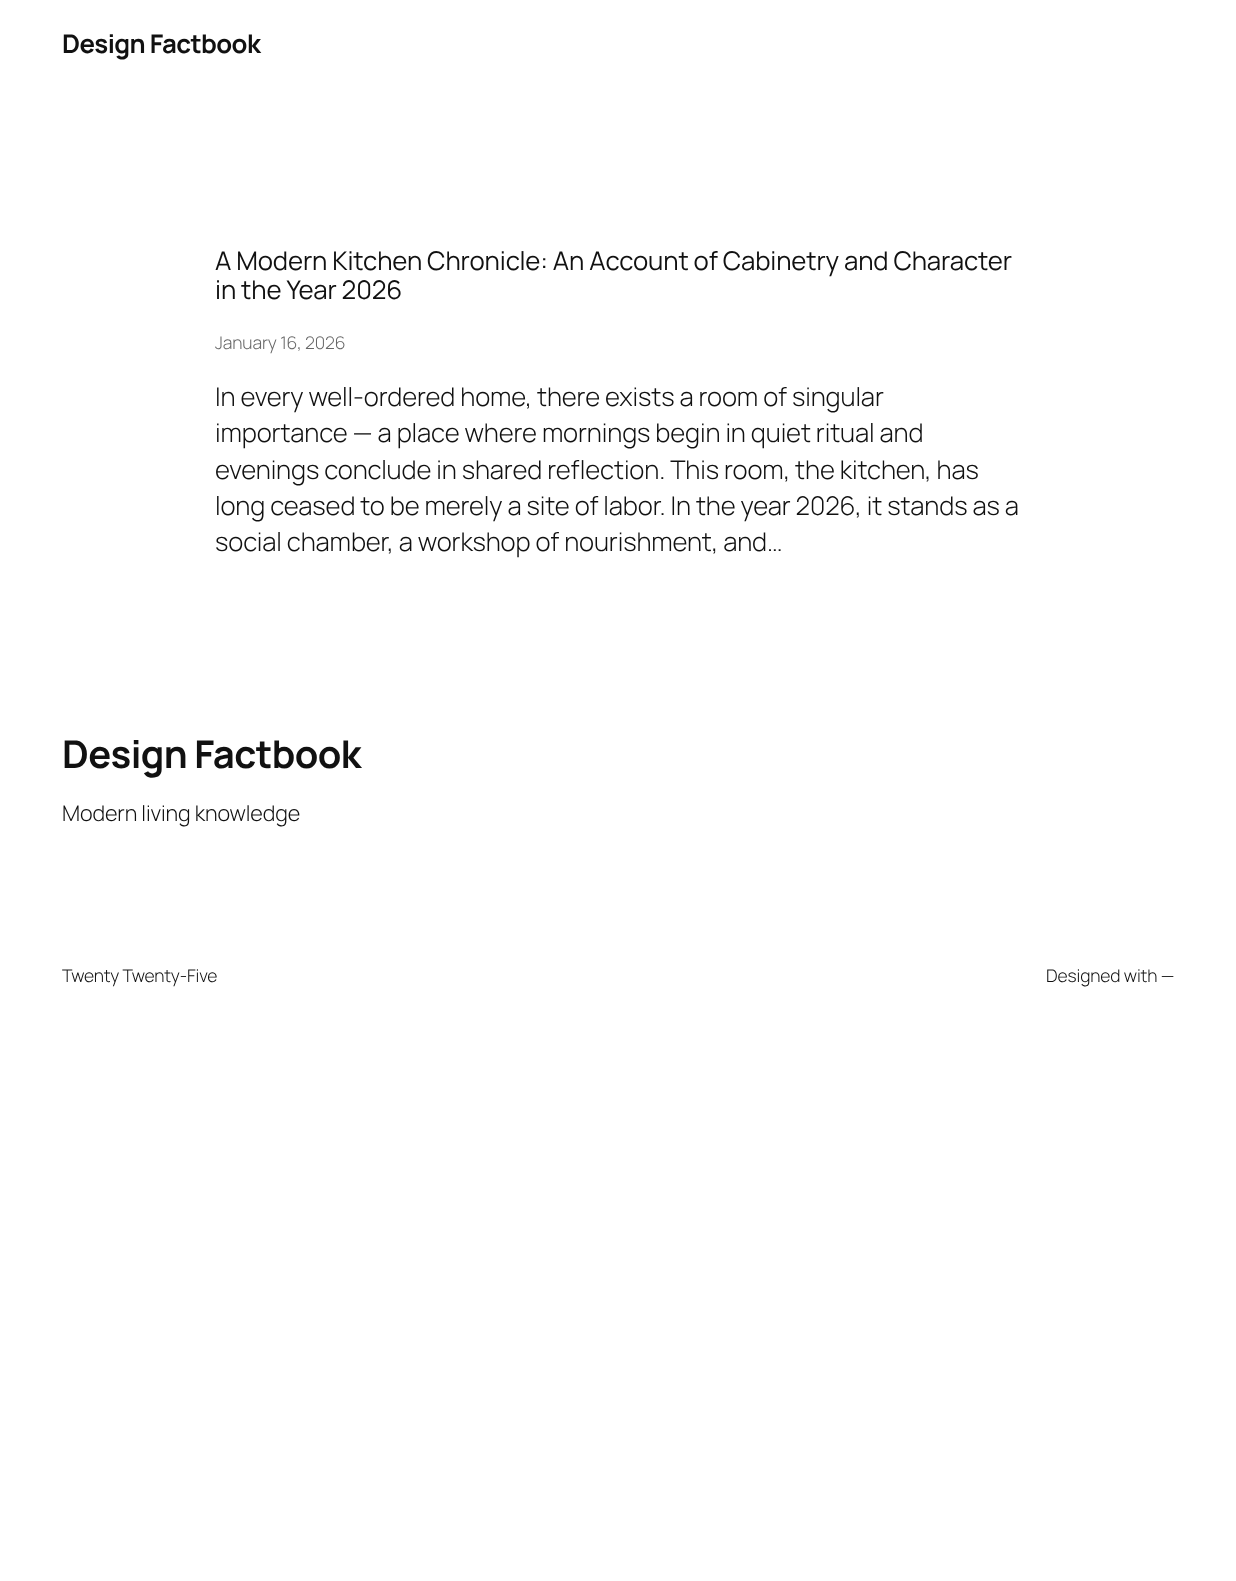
async function draw(canvas) {
  canvas.width = 1236
  canvas.height = 1581
  const ctx = canvas.getContext('2d')
  ctx.miterLimit = 4
  ctx.fontKerning = 'normal'

  ctx.fillStyle = '#fff'
  ctx.fillRect(0, 0, 1236, 1581)
  ctx.letterSpacing = '-0.6px'
  ctx.font = 'bold 25.75px Manrope'
  ctx.fillStyle = '#111'
  ctx.fillText('Design Factbook', 62, 53)
  ctx.letterSpacing = '-0.12px'
  ctx.font = '25.75px Manrope'
  ctx.fillText('A Modern Kitchen Chronicle: An Account of Cabinetry and Character', 215, 270)
  ctx.fillText('in the Year 2026', 215, 299)
  ctx.font = '300 17.5px Manrope'
  ctx.fillStyle = '#686868'
  ctx.fillText('January 16, 2026', 215, 349)
  ctx.font = '300 25.75px Manrope'
  ctx.fillStyle = '#111'
  ctx.fillText('In every well-ordered home, there exists a room of singular', 215, 406)
  ctx.fillText('importance — a place where mornings begin in quiet ritual and', 215, 442)
  ctx.fillText('evenings conclude in shared reflection. This room, the kitchen, has', 215, 479)
  ctx.fillText('long ceased to be merely a site of labor. In the year 2026, it stands as a', 215, 515)
  ctx.fillText('social chamber, a workshop of nourishment, and…', 215, 551)
  ctx.letterSpacing = '-0.6px'
  ctx.font = 'bold 38.25px Manrope'
  ctx.fillText('Design Factbook', 62, 768)
  ctx.letterSpacing = '-0.12px'
  ctx.font = '300 21.6px Manrope'
  ctx.fillText('Modern living knowledge', 62, 821)
  ctx.font = '300 17.5px Manrope'
  ctx.fillText('Twenty Twenty-Five', 62, 982)
  ctx.fillText('Designed with —', 1046, 982)
}

draw(document.querySelector('canvas'))
